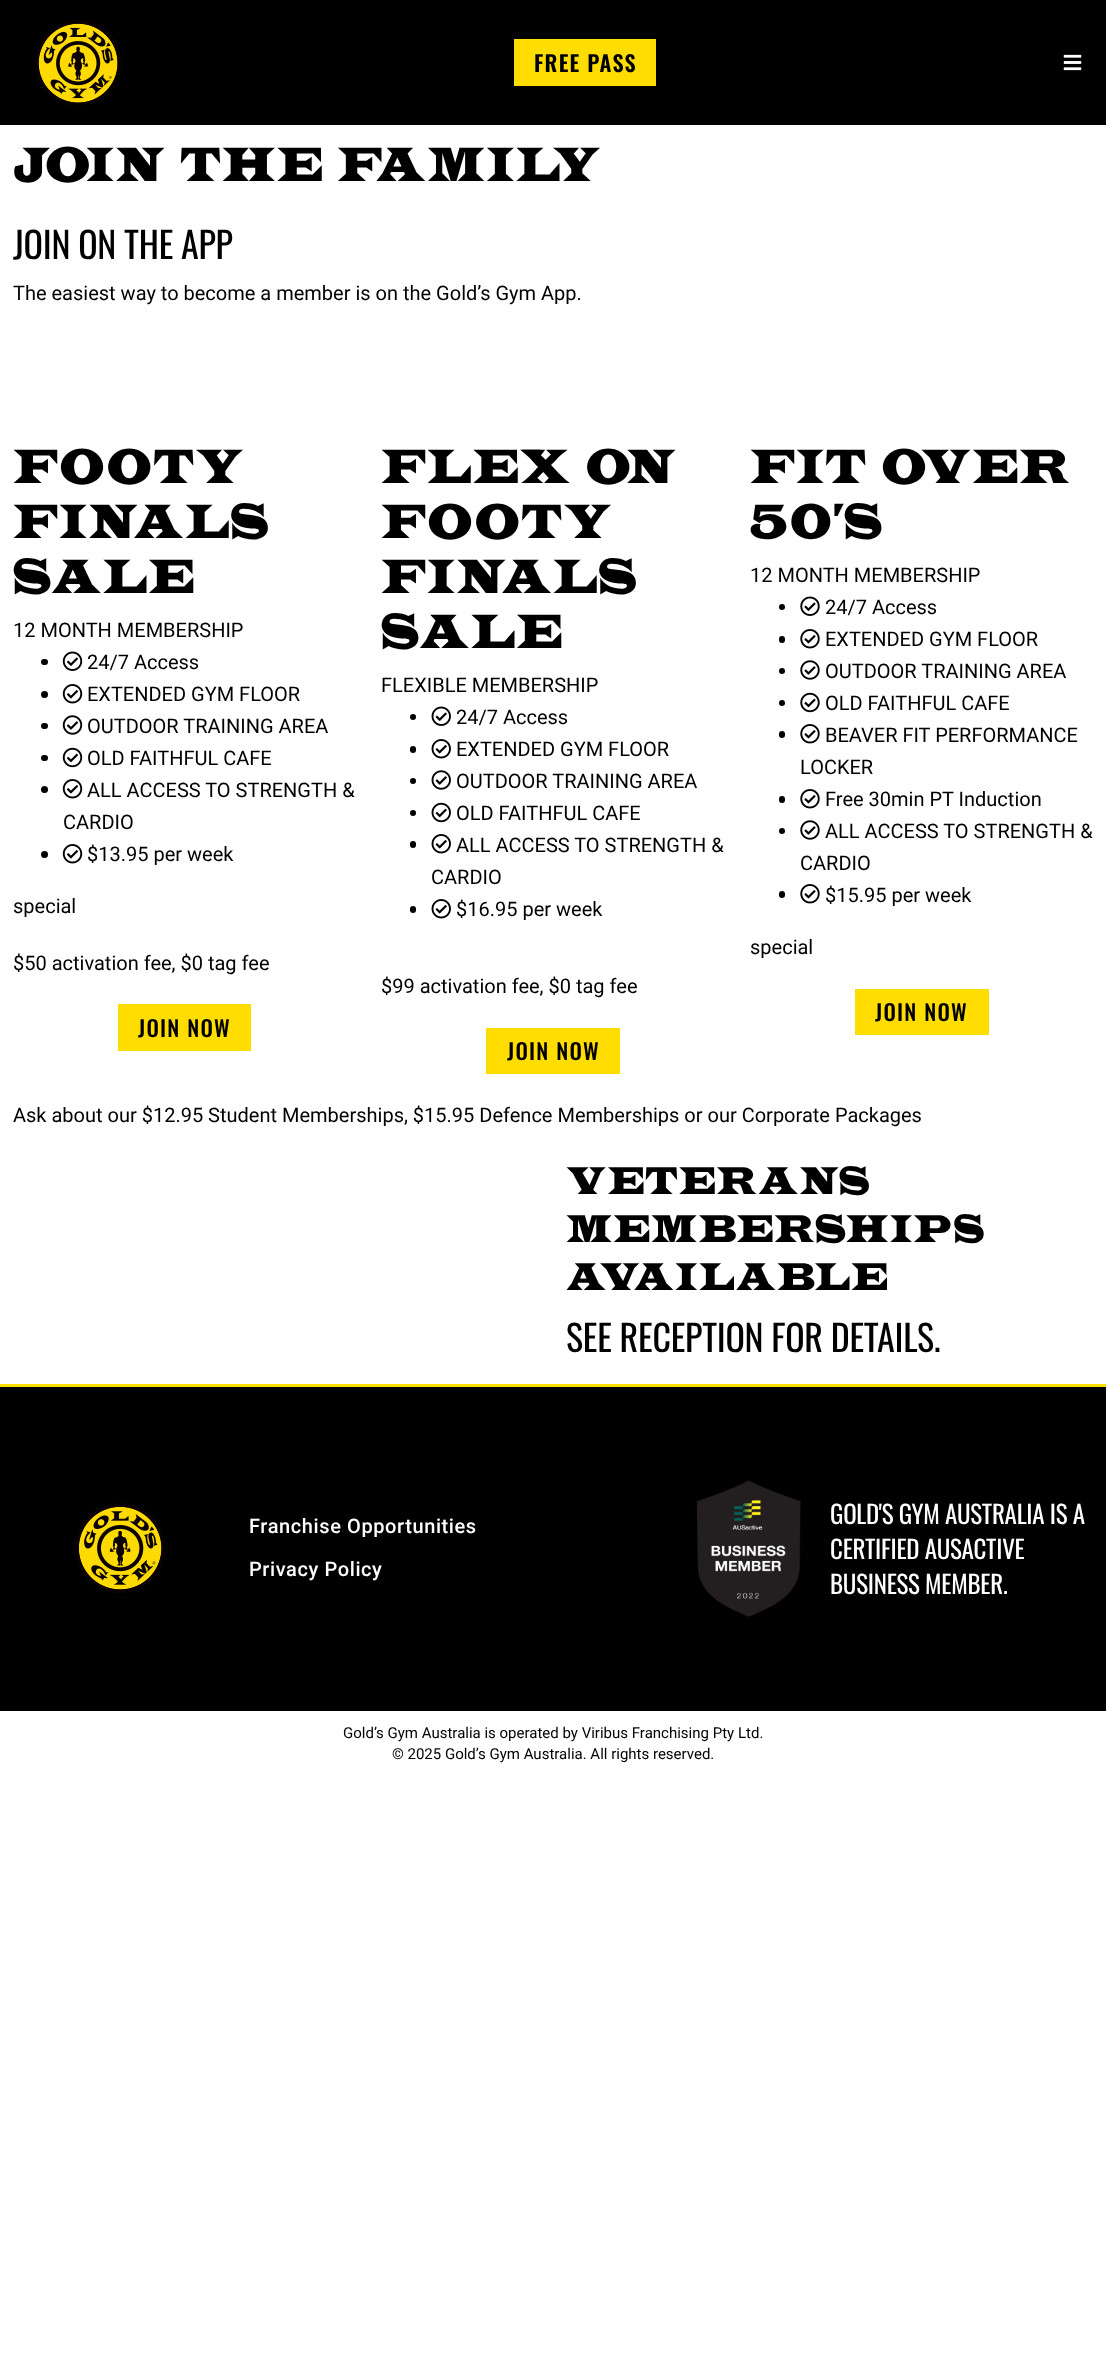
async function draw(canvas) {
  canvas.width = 1106
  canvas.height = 2359
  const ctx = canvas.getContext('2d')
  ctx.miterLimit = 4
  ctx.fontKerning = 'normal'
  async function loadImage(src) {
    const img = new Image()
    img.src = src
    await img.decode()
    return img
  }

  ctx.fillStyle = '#fff'
  ctx.fillRect(0, 0, 1106, 2359)
  ctx.fillStyle = '#000'
  ctx.fillRect(0, 0, 1106, 125)
  ctx.drawImage(await loadImage('image0.png'), 35, 20, 86, 85)
  ctx.fillStyle = '#fd0'
  ctx.fillRect(514, 39, 142, 47)
  ctx.letterSpacing = '1.25px'
  ctx.font = '600 22px Oswald'
  ctx.fillStyle = '#000'
  ctx.fillText('FREE PASS', 534, 72)
  ctx.drawImage(await loadImage('image1.png'), 1063, 54, 19, 17)
  ctx.font = '50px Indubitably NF'
  ctx.fillText('JOIN THE FAMILY', 13, 181)
  ctx.letterSpacing = '-0.25px'
  ctx.font = '36px Oswald'
  ctx.fillText('JOIN ON THE APP', 13, 259)
  ctx.letterSpacing = '0px'
  ctx.font = '20px Roboto'
  ctx.fillText('The easiest way to become a member is on the Gold’s Gym App.', 13, 300)
  ctx.letterSpacing = '1.25px'
  ctx.font = '50px Indubitably NF'
  ctx.fillText('FOOTY', 13, 483)
  ctx.fillText('FINALS', 13, 538)
  ctx.fillText('SALE', 13, 593)
  ctx.letterSpacing = '0px'
  ctx.font = '20px Roboto'
  ctx.fillText('12 MONTH MEMBERSHIP', 13, 637)
  ctx.beginPath()
  ctx.roundRect(41, 659, 7, 6, 3)
  ctx.fill()
  ctx.drawImage(await loadImage('image2.png'), 62, 651, 21, 20)
  ctx.fillText('24/7 Access', 87, 669)
  ctx.beginPath()
  ctx.arc(44.5, 694.5, 3.5, 0, 2 * Math.PI)
  ctx.fill()
  ctx.drawImage(await loadImage('image3.png'), 62, 684, 21, 20)
  ctx.fillText('EXTENDED GYM FLOOR', 87, 701)
  ctx.beginPath()
  ctx.roundRect(41, 723, 7, 6, 3)
  ctx.fill()
  ctx.drawImage(await loadImage('image4.png'), 62, 715, 21, 20)
  ctx.fillText('OUTDOOR TRAINING AREA', 87, 733)
  ctx.beginPath()
  ctx.roundRect(41, 755, 7, 6, 3)
  ctx.fill()
  ctx.drawImage(await loadImage('image5.png'), 62, 747, 21, 21)
  ctx.fillText('OLD FAITHFUL CAFE', 87, 765)
  ctx.beginPath()
  ctx.arc(44.5, 789.5, 3.5, 0, 2 * Math.PI)
  ctx.fill()
  ctx.drawImage(await loadImage('image3.png'), 62, 779, 21, 20)
  ctx.fillText('ALL ACCESS TO STRENGTH &', 87, 797)
  ctx.fillText('CARDIO', 63, 829)
  ctx.beginPath()
  ctx.arc(44.5, 854.5, 3.5, 0, 2 * Math.PI)
  ctx.fill()
  ctx.drawImage(await loadImage('image3.png'), 62, 844, 21, 20)
  ctx.fillText('$13.95 per week', 87, 861)
  ctx.fillText('special', 13, 913)
  ctx.fillText('$50 activation fee, $0 tag fee', 13, 970)
  ctx.fillStyle = '#fd0'
  ctx.fillRect(118, 1004, 133, 47)
  ctx.letterSpacing = '1.25px'
  ctx.font = '500 22px Oswald'
  ctx.fillStyle = '#000'
  ctx.fillText('JOIN NOW', 138, 1037)
  ctx.font = '50px Indubitably NF'
  ctx.fillText('FLEX ON', 381, 483)
  ctx.fillText('FOOTY', 381, 538)
  ctx.fillText('FINALS', 381, 593)
  ctx.fillText('SALE', 381, 648)
  ctx.letterSpacing = '0px'
  ctx.font = '20px Roboto'
  ctx.fillText('FLEXIBLE MEMBERSHIP', 381, 692)
  ctx.beginPath()
  ctx.arc(413, 717, 3, 0, 2 * Math.PI)
  ctx.fill()
  ctx.drawImage(await loadImage('image6.png'), 431, 706, 20, 20)
  ctx.fillText('24/7 Access', 456, 724)
  ctx.beginPath()
  ctx.roundRect(410, 746, 6, 7, 3)
  ctx.fill()
  ctx.drawImage(await loadImage('image7.png'), 431, 739, 20, 20)
  ctx.fillText('EXTENDED GYM FLOOR', 456, 756)
  ctx.beginPath()
  ctx.arc(413, 781, 3, 0, 2 * Math.PI)
  ctx.fill()
  ctx.drawImage(await loadImage('image8.png'), 431, 770, 20, 20)
  ctx.fillText('OUTDOOR TRAINING AREA', 456, 788)
  ctx.beginPath()
  ctx.arc(413, 813, 3, 0, 2 * Math.PI)
  ctx.fill()
  ctx.drawImage(await loadImage('image9.png'), 431, 802, 20, 21)
  ctx.fillText('OLD FAITHFUL CAFE', 456, 820)
  ctx.beginPath()
  ctx.roundRect(410, 841, 6, 7, 3)
  ctx.fill()
  ctx.drawImage(await loadImage('image7.png'), 431, 834, 20, 20)
  ctx.fillText('ALL ACCESS TO STRENGTH &', 456, 852)
  ctx.fillText('CARDIO', 431, 884)
  ctx.beginPath()
  ctx.roundRect(410, 906, 6, 7, 3)
  ctx.fill()
  ctx.drawImage(await loadImage('image7.png'), 431, 899, 20, 20)
  ctx.fillText('$16.95 per week', 456, 916)
  ctx.fillText('$99 activation fee, $0 tag fee', 381, 993)
  ctx.fillStyle = '#fd0'
  ctx.fillRect(486, 1028, 134, 46)
  ctx.letterSpacing = '1.25px'
  ctx.font = '500 22px Oswald'
  ctx.fillStyle = '#000'
  ctx.fillText('JOIN NOW', 507, 1060)
  ctx.font = '50px Indubitably NF'
  ctx.fillText('FIT OVER', 750, 483)
  ctx.fillText('50\'S', 750, 538)
  ctx.letterSpacing = '0px'
  ctx.font = '20px Roboto'
  ctx.fillText('12 MONTH MEMBERSHIP', 750, 582)
  ctx.beginPath()
  ctx.arc(782, 607, 3, 0, 2 * Math.PI)
  ctx.fill()
  ctx.drawImage(await loadImage('image10.png'), 800, 596, 20, 20)
  ctx.fillText('24/7 Access', 825, 614)
  ctx.beginPath()
  ctx.roundRect(779, 636, 6, 7, 3)
  ctx.fill()
  ctx.drawImage(await loadImage('image11.png'), 800, 629, 20, 20)
  ctx.fillText('EXTENDED GYM FLOOR', 825, 646)
  ctx.beginPath()
  ctx.arc(782, 671, 3, 0, 2 * Math.PI)
  ctx.fill()
  ctx.drawImage(await loadImage('image12.png'), 800, 660, 20, 20)
  ctx.fillText('OUTDOOR TRAINING AREA', 825, 678)
  ctx.beginPath()
  ctx.arc(782, 703, 3, 0, 2 * Math.PI)
  ctx.fill()
  ctx.drawImage(await loadImage('image13.png'), 800, 692, 20, 21)
  ctx.fillText('OLD FAITHFUL CAFE', 825, 710)
  ctx.beginPath()
  ctx.roundRect(779, 731, 6, 7, 3)
  ctx.fill()
  ctx.drawImage(await loadImage('image11.png'), 800, 724, 20, 20)
  ctx.fillText('BEAVER FIT PERFORMANCE', 825, 742)
  ctx.fillText('LOCKER', 800, 774)
  ctx.beginPath()
  ctx.roundRect(779, 796, 6, 7, 3)
  ctx.fill()
  ctx.drawImage(await loadImage('image11.png'), 800, 789, 20, 20)
  ctx.fillText('Free 30min PT Induction', 825, 806)
  ctx.beginPath()
  ctx.arc(782, 831, 3, 0, 2 * Math.PI)
  ctx.fill()
  ctx.drawImage(await loadImage('image12.png'), 800, 820, 20, 20)
  ctx.fillText('ALL ACCESS TO STRENGTH &', 825, 838)
  ctx.fillText('CARDIO', 800, 870)
  ctx.beginPath()
  ctx.roundRect(779, 891, 6, 7, 3)
  ctx.fill()
  ctx.drawImage(await loadImage('image11.png'), 800, 884, 20, 20)
  ctx.fillText('$15.95 per week', 825, 902)
  ctx.fillText('special', 750, 954)
  ctx.fillStyle = '#fd0'
  ctx.fillRect(855, 989, 134, 46)
  ctx.letterSpacing = '1.25px'
  ctx.font = '500 22px Oswald'
  ctx.fillStyle = '#000'
  ctx.fillText('JOIN NOW', 875, 1021)
  ctx.letterSpacing = '0px'
  ctx.font = '20px Roboto'
  ctx.fillText('Ask about our $12.95 Student Memberships, $15.95 Defence Memberships or our Corporate Packages', 13, 1122)
  ctx.letterSpacing = '1.25px'
  ctx.font = '40px Indubitably NF'
  ctx.fillText('VETERANS', 566, 1194)
  ctx.fillText('MEMBERSHIPS', 566, 1242)
  ctx.fillText('AVAILABLE', 566, 1290)
  ctx.letterSpacing = '-0.25px'
  ctx.font = '36px Oswald'
  ctx.fillText('SEE RECEPTION FOR DETAILS.', 566, 1352)
  ctx.fillRect(0, 1387, 1106, 324)
  ctx.fillStyle = '#fd0'
  ctx.fillRect(0, 1384, 1106, 3)
  ctx.drawImage(await loadImage('image14.png'), 75, 1503, 90, 90)
  ctx.letterSpacing = '0.6px'
  ctx.font = '500 20px Roboto'
  ctx.fillStyle = '#fff'
  ctx.fillText('Franchise Opportunities', 249, 1533)
  ctx.fillText('Privacy Policy', 249, 1576)
  ctx.drawImage(await loadImage('image15.png'), 696, 1480, 105, 137)
  ctx.letterSpacing = '-0.25px'
  ctx.font = '25px Oswald'
  ctx.fillText('GOLD\'S GYM AUSTRALIA IS A', 830, 1524)
  ctx.fillText('CERTIFIED AUSACTIVE', 830, 1559)
  ctx.fillText('BUSINESS MEMBER.', 830, 1594)
  ctx.letterSpacing = '0px'
  ctx.font = '15px Roboto'
  ctx.fillStyle = '#000'
  ctx.fillText('Gold’s Gym Australia is operated by Viribus Franchising Pty Ltd.', 343, 1738)
  ctx.fillText('© 2025 Gold’s Gym Australia. All rights reserved.', 392, 1759)
}

draw(document.querySelector('canvas'))
